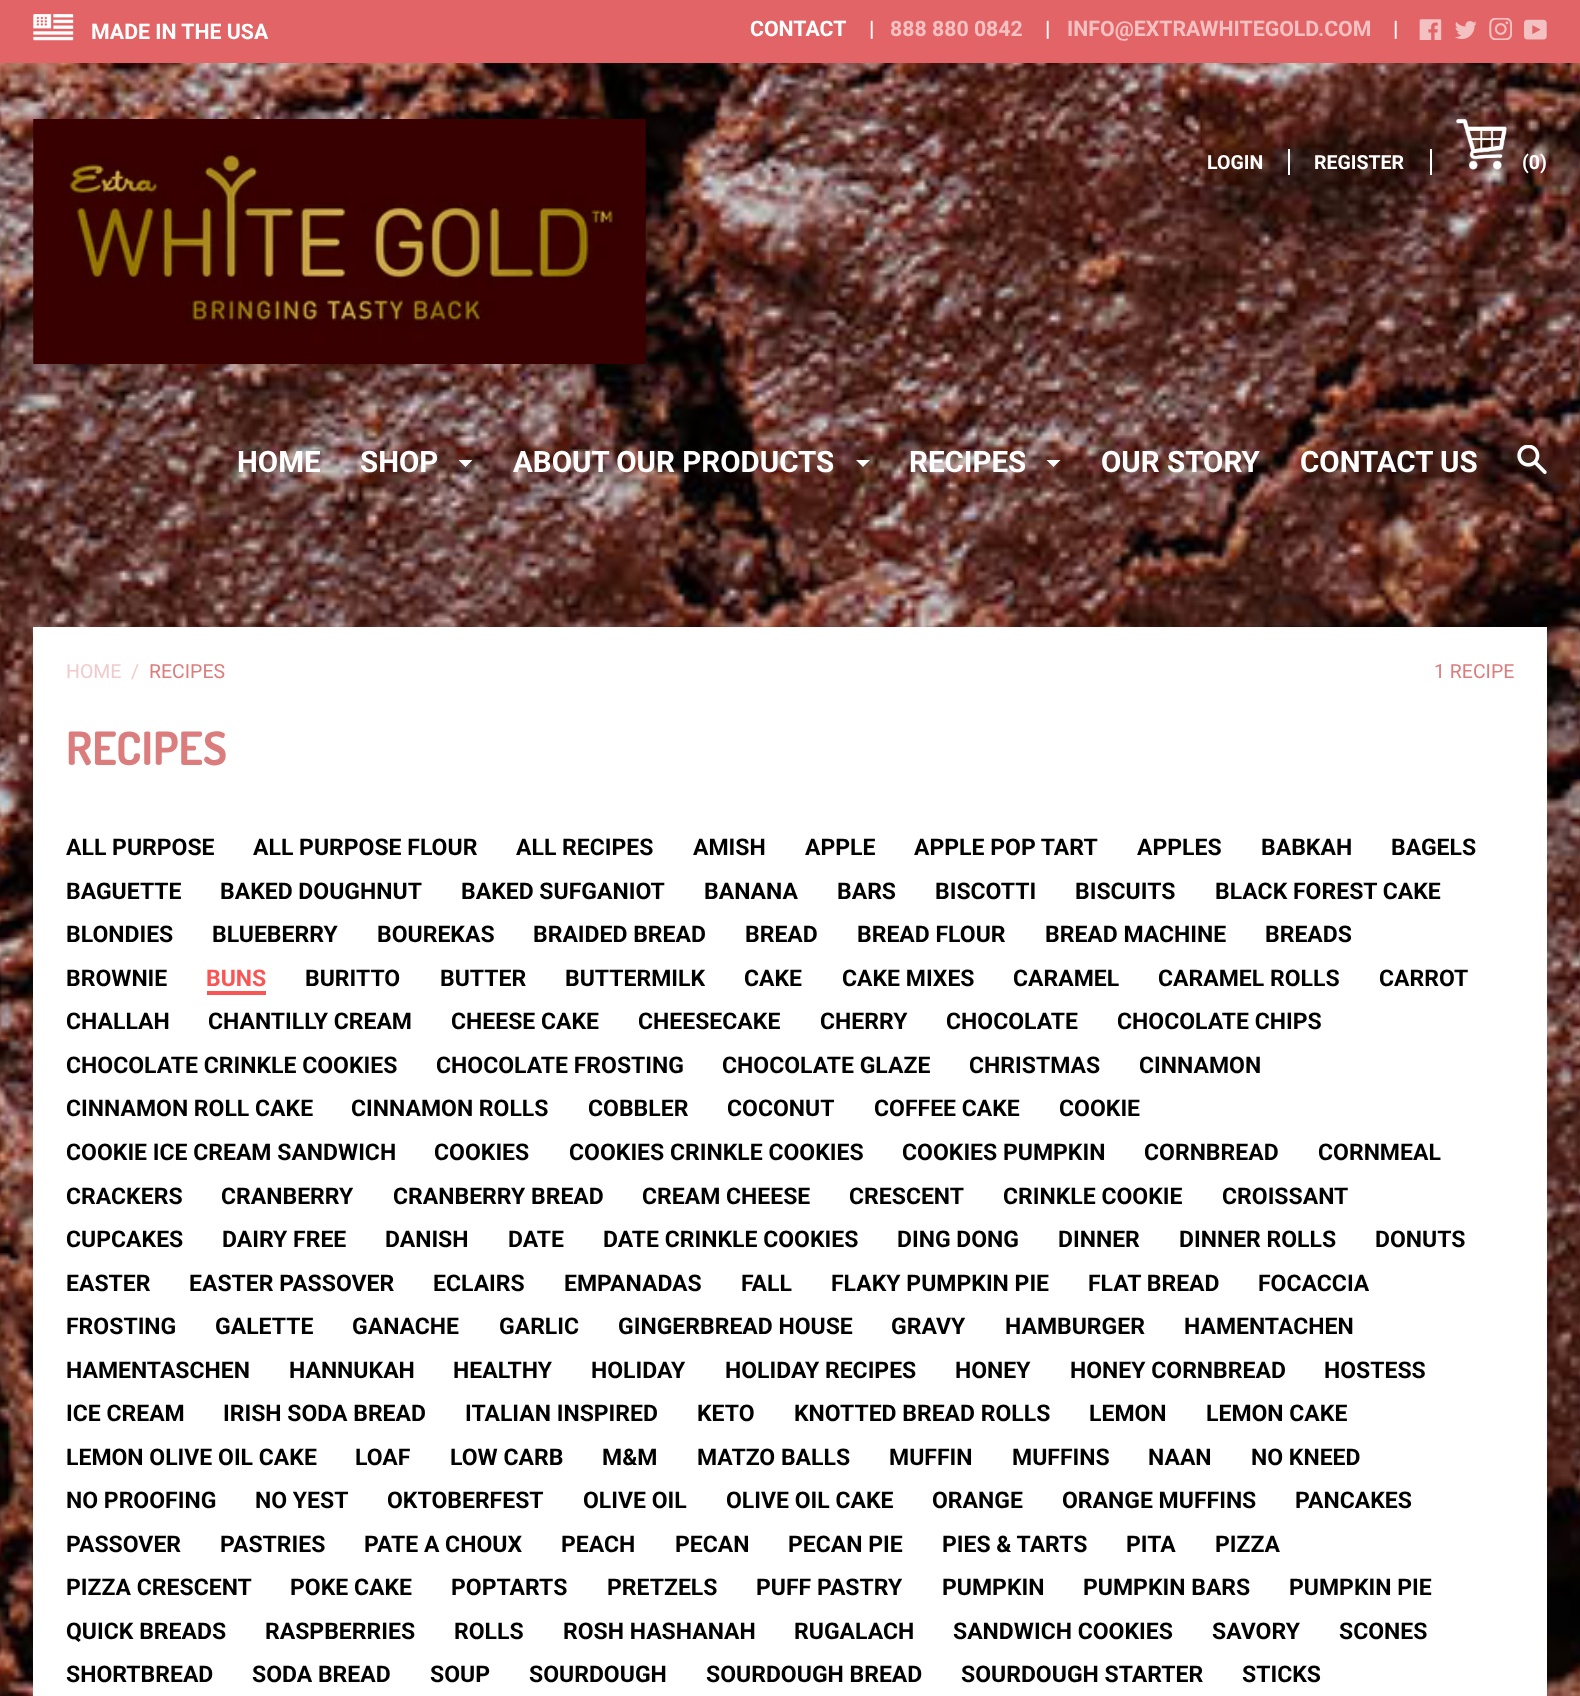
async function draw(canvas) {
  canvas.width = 1580
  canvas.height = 1696
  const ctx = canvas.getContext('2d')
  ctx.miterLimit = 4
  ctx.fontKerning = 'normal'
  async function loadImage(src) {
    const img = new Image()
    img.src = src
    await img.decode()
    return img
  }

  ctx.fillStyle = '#fff'
  ctx.fillRect(0, 0, 1580, 1696)
  ctx.drawImage(await loadImage('image0.png'), 0, 63, 1580, 1633)
  ctx.fillStyle = '#e36466'
  ctx.fillRect(0, 0, 1580, 63)
  ctx.drawImage(await loadImage('image1.png'), 33, 14, 41, 27)
  ctx.font = 'bold 21.3px Roboto'
  ctx.fillStyle = '#fff'
  ctx.fillText('MADE IN THE USA', 91, 39)
  ctx.fillText('CONTACT', 750, 36)
  ctx.fillText('|', 869, 36)
  ctx.fillStyle = '#f4c1c2'
  ctx.fillText('888 880 0842', 890, 36)
  ctx.fillStyle = '#fff'
  ctx.fillText('|', 1045, 36)
  ctx.fillStyle = '#f4c1c2'
  ctx.fillText('INFO@EXTRAWHITEGOLD.COM', 1067, 36)
  ctx.fillStyle = '#fff'
  ctx.fillText('|', 1393, 36)
  ctx.drawImage(await loadImage('image2.png'), 1419, 19, 23, 21)
  ctx.drawImage(await loadImage('image3.png'), 1455, 21, 22, 18)
  ctx.drawImage(await loadImage('image4.png'), 1489, 18, 23, 22)
  ctx.drawImage(await loadImage('image5.png'), 1524, 19, 23, 21)
  ctx.drawImage(await loadImage('image6.png'), 33, 119, 613, 245)
  ctx.font = 'bold 19.5px Roboto'
  ctx.fillText('LOGIN', 1207, 169)
  ctx.fillRect(1288, 149, 2, 26)
  ctx.fillText('REGISTER', 1314, 169)
  ctx.fillRect(1430, 149, 2, 26)
  ctx.drawImage(await loadImage('image7.png'), 1456, 119, 51, 51)
  ctx.fillText('(0)', 1522, 169)
  ctx.font = 'bold 29.5px Roboto'
  ctx.fillText('HOME', 237, 472)
  ctx.fillText('SHOP', 360, 472)
  ctx.beginPath()
  ctx.moveTo(458.5, 460)
  ctx.lineTo(472.5, 460)
  ctx.lineTo(465.5, 467)
  ctx.closePath()
  ctx.fill()
  ctx.fillText('ABOUT OUR PRODUCTS', 513, 472)
  ctx.beginPath()
  ctx.moveTo(856, 460)
  ctx.lineTo(870, 460)
  ctx.lineTo(863, 467)
  ctx.closePath()
  ctx.fill()
  ctx.fillText('RECIPES', 909, 472)
  ctx.beginPath()
  ctx.moveTo(1046.5, 460)
  ctx.lineTo(1060.5, 460)
  ctx.lineTo(1053.5, 467)
  ctx.closePath()
  ctx.fill()
  ctx.fillText('OUR STORY', 1101, 472)
  ctx.fillText('CONTACT US', 1300, 472)
  ctx.drawImage(await loadImage('image8.png'), 1517, 445, 30, 29)
  ctx.fillRect(33, 627, 1514, 1069)
  ctx.font = '19.5px Roboto'
  ctx.fillStyle = '#f1cbcb'
  ctx.fillText('HOME', 66, 678)
  ctx.fillText('/', 131, 678)
  ctx.fillStyle = '#db7d7d'
  ctx.fillText('RECIPES', 149, 678)
  ctx.fillText('1 RECIPE', 1434, 678)
  ctx.font = 'bold 46px Dosis'
  ctx.fillText('RECIPES', 66, 765)
  ctx.font = 'bold 23px Roboto'
  ctx.fillStyle = '#000'
  ctx.fillText('ALL PURPOSE', 66, 855)
  ctx.fillText('ALL PURPOSE FLOUR', 253, 855)
  ctx.fillText('ALL RECIPES', 516, 855)
  ctx.fillText('AMISH', 693, 855)
  ctx.fillText('APPLE', 805, 855)
  ctx.fillText('APPLE POP TART', 914, 855)
  ctx.fillText('APPLES', 1137, 855)
  ctx.fillText('BABKAH', 1261, 855)
  ctx.fillText('BAGELS', 1391, 855)
  ctx.fillText('BAGUETTE', 66, 899)
  ctx.fillText('BAKED DOUGHNUT', 220, 899)
  ctx.fillText('BAKED SUFGANIOT', 461, 899)
  ctx.fillText('BANANA', 704, 899)
  ctx.fillText('BARS', 837, 899)
  ctx.fillText('BISCOTTI', 935, 899)
  ctx.fillText('BISCUITS', 1075, 899)
  ctx.fillText('BLACK FOREST CAKE', 1215, 899)
  ctx.fillText('BLONDIES', 66, 942)
  ctx.fillText('BLUEBERRY', 212, 942)
  ctx.fillText('BOUREKAS', 377, 942)
  ctx.fillText('BRAIDED BREAD', 533, 942)
  ctx.fillText('BREAD', 745, 942)
  ctx.fillText('BREAD FLOUR', 857, 942)
  ctx.fillText('BREAD MACHINE', 1045, 942)
  ctx.fillText('BREADS', 1265, 942)
  ctx.fillText('BROWNIE', 66, 986)
  ctx.fillStyle = '#fa5555'
  ctx.fillText('BUNS', 206, 986)
  ctx.fillRect(207, 991, 59, 4)
  ctx.fillStyle = '#000'
  ctx.fillText('BURITTO', 305, 986)
  ctx.fillText('BUTTER', 440, 986)
  ctx.fillText('BUTTERMILK', 565, 986)
  ctx.fillText('CAKE', 744, 986)
  ctx.fillText('CAKE MIXES', 842, 986)
  ctx.fillText('CARAMEL', 1013, 986)
  ctx.fillText('CARAMEL ROLLS', 1158, 986)
  ctx.fillText('CARROT', 1379, 986)
  ctx.fillText('CHALLAH', 66, 1029)
  ctx.fillText('CHANTILLY CREAM', 208, 1029)
  ctx.fillText('CHEESE CAKE', 451, 1029)
  ctx.fillText('CHEESECAKE', 638, 1029)
  ctx.fillText('CHERRY', 820, 1029)
  ctx.fillText('CHOCOLATE', 946, 1029)
  ctx.fillText('CHOCOLATE CHIPS', 1117, 1029)
  ctx.fillText('CHOCOLATE CRINKLE COOKIES', 66, 1073)
  ctx.fillText('CHOCOLATE FROSTING', 436, 1073)
  ctx.fillText('CHOCOLATE GLAZE', 722, 1073)
  ctx.fillText('CHRISTMAS', 969, 1073)
  ctx.fillText('CINNAMON', 1139, 1073)
  ctx.fillText('CINNAMON ROLL CAKE', 66, 1116)
  ctx.fillText('CINNAMON ROLLS', 351, 1116)
  ctx.fillText('COBBLER', 588, 1116)
  ctx.fillText('COCONUT', 727, 1116)
  ctx.fillText('COFFEE CAKE', 874, 1116)
  ctx.fillText('COOKIE', 1059, 1116)
  ctx.fillText('COOKIE ICE CREAM SANDWICH', 66, 1160)
  ctx.fillText('COOKIES', 434, 1160)
  ctx.fillText('COOKIES CRINKLE COOKIES', 569, 1160)
  ctx.fillText('COOKIES PUMPKIN', 902, 1160)
  ctx.fillText('CORNBREAD', 1144, 1160)
  ctx.fillText('CORNMEAL', 1318, 1160)
  ctx.fillText('CRACKERS', 66, 1204)
  ctx.fillText('CRANBERRY', 221, 1204)
  ctx.fillText('CRANBERRY BREAD', 393, 1204)
  ctx.fillText('CREAM CHEESE', 642, 1204)
  ctx.fillText('CRESCENT', 849, 1204)
  ctx.fillText('CRINKLE COOKIE', 1003, 1204)
  ctx.fillText('CROISSANT', 1222, 1204)
  ctx.fillText('CUPCAKES', 66, 1247)
  ctx.fillText('DAIRY FREE', 222, 1247)
  ctx.fillText('DANISH', 385, 1247)
  ctx.fillText('DATE', 508, 1247)
  ctx.fillText('DATE CRINKLE COOKIES', 603, 1247)
  ctx.fillText('DING DONG', 897, 1247)
  ctx.fillText('DINNER', 1058, 1247)
  ctx.fillText('DINNER ROLLS', 1179, 1247)
  ctx.fillText('DONUTS', 1375, 1247)
  ctx.fillText('EASTER', 66, 1291)
  ctx.fillText('EASTER PASSOVER', 189, 1291)
  ctx.fillText('ECLAIRS', 433, 1291)
  ctx.fillText('EMPANADAS', 564, 1291)
  ctx.fillText('FALL', 741, 1291)
  ctx.fillText('FLAKY PUMPKIN PIE', 831, 1291)
  ctx.fillText('FLAT BREAD', 1088, 1291)
  ctx.fillText('FOCACCIA', 1258, 1291)
  ctx.fillText('FROSTING', 66, 1334)
  ctx.fillText('GALETTE', 215, 1334)
  ctx.fillText('GANACHE', 352, 1334)
  ctx.fillText('GARLIC', 499, 1334)
  ctx.fillText('GINGERBREAD HOUSE', 618, 1334)
  ctx.fillText('GRAVY', 891, 1334)
  ctx.fillText('HAMBURGER', 1005, 1334)
  ctx.fillText('HAMENTACHEN', 1184, 1334)
  ctx.fillText('HAMENTASCHEN', 66, 1378)
  ctx.fillText('HANNUKAH', 289, 1378)
  ctx.fillText('HEALTHY', 453, 1378)
  ctx.fillText('HOLIDAY', 591, 1378)
  ctx.fillText('HOLIDAY RECIPES', 725, 1378)
  ctx.fillText('HONEY', 955, 1378)
  ctx.fillText('HONEY CORNBREAD', 1070, 1378)
  ctx.fillText('HOSTESS', 1324, 1378)
  ctx.fillText('ICE CREAM', 66, 1421)
  ctx.fillText('IRISH SODA BREAD', 223, 1421)
  ctx.fillText('ITALIAN INSPIRED', 465, 1421)
  ctx.fillText('KETO', 697, 1421)
  ctx.fillText('KNOTTED BREAD ROLLS', 794, 1421)
  ctx.fillText('LEMON', 1089, 1421)
  ctx.fillText('LEMON CAKE', 1206, 1421)
  ctx.fillText('LEMON OLIVE OIL CAKE', 66, 1465)
  ctx.fillText('LOAF', 355, 1465)
  ctx.fillText('LOW CARB', 450, 1465)
  ctx.fillText('M&M', 602, 1465)
  ctx.fillText('MATZO BALLS', 697, 1465)
  ctx.fillText('MUFFIN', 889, 1465)
  ctx.fillText('MUFFINS', 1012, 1465)
  ctx.fillText('NAAN', 1148, 1465)
  ctx.fillText('NO KNEED', 1251, 1465)
  ctx.fillText('NO PROOFING', 66, 1508)
  ctx.fillText('NO YEST', 255, 1508)
  ctx.fillText('OKTOBERFEST', 387, 1508)
  ctx.fillText('OLIVE OIL', 583, 1508)
  ctx.fillText('OLIVE OIL CAKE', 726, 1508)
  ctx.fillText('ORANGE', 932, 1508)
  ctx.fillText('ORANGE MUFFINS', 1062, 1508)
  ctx.fillText('PANCAKES', 1295, 1508)
  ctx.fillText('PASSOVER', 66, 1552)
  ctx.fillText('PASTRIES', 220, 1552)
  ctx.fillText('PATE A CHOUX', 364, 1552)
  ctx.fillText('PEACH', 561, 1552)
  ctx.fillText('PECAN', 675, 1552)
  ctx.fillText('PECAN PIE', 788, 1552)
  ctx.fillText('PIES & TARTS', 942, 1552)
  ctx.fillText('PITA', 1126, 1552)
  ctx.fillText('PIZZA', 1215, 1552)
  ctx.fillText('PIZZA CRESCENT', 66, 1595)
  ctx.fillText('POKE CAKE', 290, 1595)
  ctx.fillText('POPTARTS', 451, 1595)
  ctx.fillText('PRETZELS', 607, 1595)
  ctx.fillText('PUFF PASTRY', 756, 1595)
  ctx.fillText('PUMPKIN', 942, 1595)
  ctx.fillText('PUMPKIN BARS', 1083, 1595)
  ctx.fillText('PUMPKIN PIE', 1289, 1595)
  ctx.fillText('QUICK BREADS', 66, 1639)
  ctx.fillText('RASPBERRIES', 265, 1639)
  ctx.fillText('ROLLS', 454, 1639)
  ctx.fillText('ROSH HASHANAH', 563, 1639)
  ctx.fillText('RUGALACH', 794, 1639)
  ctx.fillText('SANDWICH COOKIES', 953, 1639)
  ctx.fillText('SAVORY', 1212, 1639)
  ctx.fillText('SCONES', 1339, 1639)
  ctx.fillText('SHORTBREAD', 66, 1682)
  ctx.fillText('SODA BREAD', 252, 1682)
  ctx.fillText('SOUP', 430, 1682)
  ctx.fillText('SOURDOUGH', 529, 1682)
  ctx.fillText('SOURDOUGH BREAD', 706, 1682)
  ctx.fillText('SOURDOUGH STARTER', 961, 1682)
  ctx.fillText('STICKS', 1242, 1682)
}

draw(document.querySelector('canvas'))
